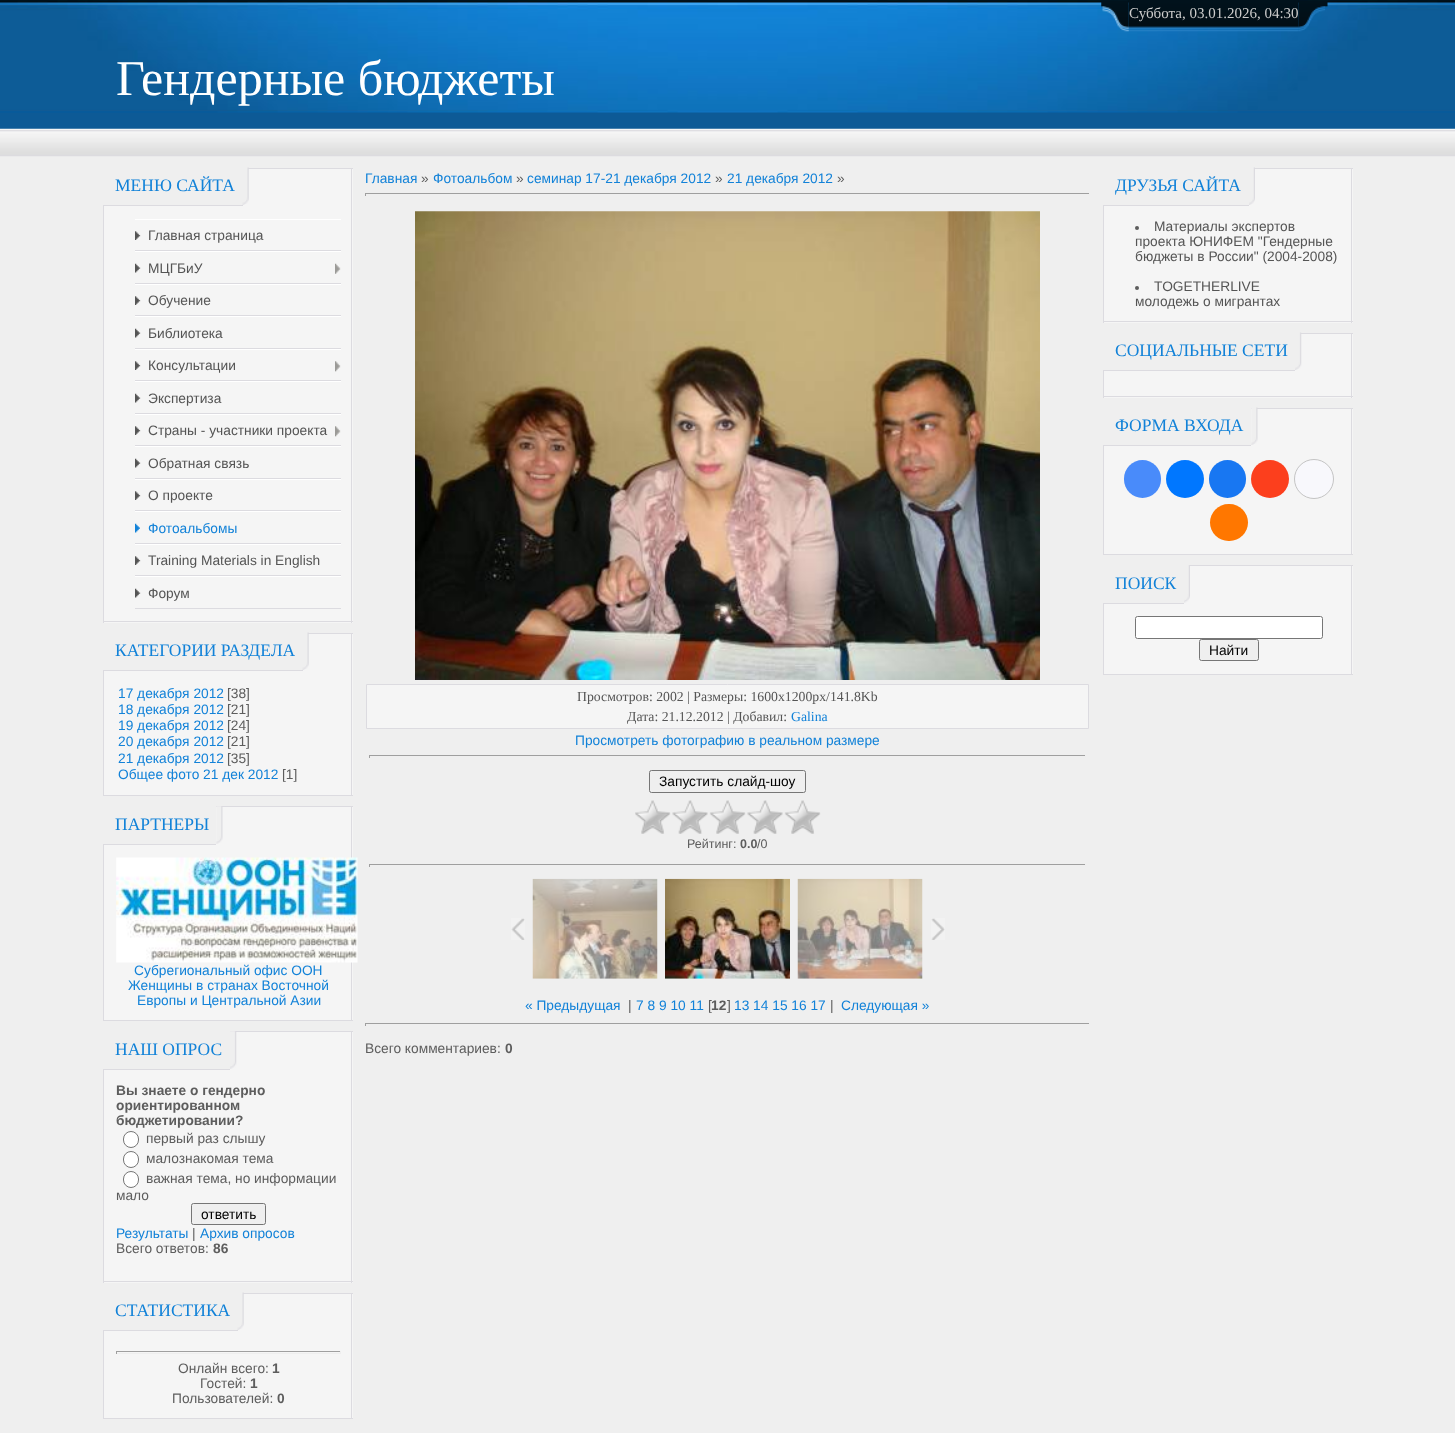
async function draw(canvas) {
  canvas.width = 1455
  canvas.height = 1433
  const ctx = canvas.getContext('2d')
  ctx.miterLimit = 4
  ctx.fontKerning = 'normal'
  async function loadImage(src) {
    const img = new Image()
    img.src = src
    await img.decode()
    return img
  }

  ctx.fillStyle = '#efefef'
  ctx.fillRect(0, 0, 1455, 1433)
  ctx.drawImage(await loadImage('image0.png'), 0, 112, 1455, 45)
  ctx.drawImage(await loadImage('image1.png'), 0, 0, 1455, 113)
  ctx.drawImage(await loadImage('image4.png'), 1298, 1, 30, 31)
  ctx.drawImage(await loadImage('image3.png'), 1128, 0, 171, 32)
  ctx.drawImage(await loadImage('image2.png'), 1101, 1, 28, 31)
  ctx.font = '15px Liberation Serif'
  ctx.fillStyle = '#ccc'
  ctx.fillText('Суббота, 03.01.2026, 04:30', 1129, 18)
  ctx.font = '50px Liberation Serif'
  ctx.fillStyle = '#fff'
  ctx.fillText('Гендерные бюджеты', 116, 95)
  ctx.fillStyle = '#f5f5f5'
  ctx.fillRect(104, 169, 249, 454)
  ctx.fillStyle = '#dcdbe0'
  ctx.fillRect(248, 168, 105, 1)
  ctx.fillRect(351, 168, 1, 455)
  ctx.fillStyle = '#efefef'
  ctx.fillRect(104, 169, 139, 36)
  ctx.fillStyle = '#dcdbe0'
  ctx.fillRect(103, 205, 140, 1)
  ctx.font = '17.5px Liberation Serif'
  ctx.fillStyle = '#1282d8'
  ctx.fillText('МЕНЮ САЙТА', 115, 191)
  ctx.drawImage(await loadImage('image5.png'), 242, 167, 7, 38)
  ctx.fillStyle = '#dcdbe0'
  ctx.fillRect(103, 621, 250, 1)
  ctx.fillRect(103, 206, 1, 417)
  ctx.fillStyle = '#fff'
  ctx.fillRect(135, 219, 206, 1)
  ctx.fillStyle = '#dcdbe0'
  ctx.fillRect(135, 250, 206, 1)
  ctx.drawImage(await loadImage('image6.png'), 135, 231, 6, 9)
  ctx.font = '13.75px Liberation Sans'
  ctx.fillStyle = '#555'
  ctx.fillText('Главная страница', 148, 240)
  ctx.fillStyle = '#fff'
  ctx.fillRect(135, 251, 206, 1)
  ctx.fillStyle = '#dcdbe0'
  ctx.fillRect(135, 283, 206, 1)
  ctx.drawImage(await loadImage('image7.png'), 135, 263, 6, 10)
  ctx.fillStyle = '#555'
  ctx.fillText('МЦГБиУ', 148, 273)
  ctx.drawImage(await loadImage('image8.png'), 335, 263, 6, 11)
  ctx.fillStyle = '#fff'
  ctx.fillRect(135, 284, 206, 1)
  ctx.fillStyle = '#dcdbe0'
  ctx.fillRect(135, 315, 206, 1)
  ctx.drawImage(await loadImage('image9.png'), 135, 296, 6, 9)
  ctx.fillStyle = '#555'
  ctx.fillText('Обучение', 148, 305)
  ctx.fillStyle = '#fff'
  ctx.fillRect(135, 316, 206, 1)
  ctx.fillStyle = '#dcdbe0'
  ctx.fillRect(135, 348, 206, 1)
  ctx.drawImage(await loadImage('image7.png'), 135, 328, 6, 10)
  ctx.fillStyle = '#555'
  ctx.fillText('Библиотека', 148, 338)
  ctx.fillStyle = '#fff'
  ctx.fillRect(135, 349, 206, 1)
  ctx.fillStyle = '#dcdbe0'
  ctx.fillRect(135, 380, 206, 1)
  ctx.drawImage(await loadImage('image6.png'), 135, 361, 6, 9)
  ctx.fillStyle = '#555'
  ctx.fillText('Консультации', 148, 370)
  ctx.drawImage(await loadImage('image10.png'), 335, 361, 6, 11)
  ctx.fillStyle = '#fff'
  ctx.fillRect(135, 381, 206, 1)
  ctx.fillStyle = '#dcdbe0'
  ctx.fillRect(135, 413, 206, 1)
  ctx.drawImage(await loadImage('image7.png'), 135, 393, 6, 10)
  ctx.fillStyle = '#555'
  ctx.fillText('Экспертиза', 148, 403)
  ctx.fillStyle = '#fff'
  ctx.fillRect(135, 414, 206, 1)
  ctx.fillStyle = '#dcdbe0'
  ctx.fillRect(135, 445, 206, 1)
  ctx.drawImage(await loadImage('image6.png'), 135, 426, 6, 9)
  ctx.fillStyle = '#555'
  ctx.fillText('Страны - участники проекта', 148, 435)
  ctx.drawImage(await loadImage('image10.png'), 335, 426, 6, 11)
  ctx.fillStyle = '#fff'
  ctx.fillRect(135, 446, 206, 1)
  ctx.fillStyle = '#dcdbe0'
  ctx.fillRect(135, 478, 206, 1)
  ctx.drawImage(await loadImage('image7.png'), 135, 458, 6, 10)
  ctx.fillStyle = '#555'
  ctx.fillText('Обратная связь', 148, 468)
  ctx.fillStyle = '#fff'
  ctx.fillRect(135, 479, 206, 1)
  ctx.fillStyle = '#dcdbe0'
  ctx.fillRect(135, 510, 206, 1)
  ctx.drawImage(await loadImage('image6.png'), 135, 491, 6, 9)
  ctx.fillStyle = '#555'
  ctx.fillText('О проекте', 148, 500)
  ctx.fillStyle = '#fff'
  ctx.fillRect(135, 511, 206, 1)
  ctx.fillStyle = '#dcdbe0'
  ctx.fillRect(135, 543, 206, 1)
  ctx.drawImage(await loadImage('image11.png'), 135, 523, 5, 10)
  ctx.fillStyle = '#1282d8'
  ctx.fillText('Фотоальбомы', 148, 533)
  ctx.fillStyle = '#fff'
  ctx.fillRect(135, 544, 206, 1)
  ctx.fillStyle = '#dcdbe0'
  ctx.fillRect(135, 575, 206, 1)
  ctx.drawImage(await loadImage('image6.png'), 135, 556, 6, 9)
  ctx.fillStyle = '#555'
  ctx.fillText('Training Materials in English', 148, 565)
  ctx.fillStyle = '#fff'
  ctx.fillRect(135, 576, 206, 1)
  ctx.fillStyle = '#dcdbe0'
  ctx.fillRect(135, 608, 206, 1)
  ctx.drawImage(await loadImage('image12.png'), 135, 588, 6, 10)
  ctx.fillStyle = '#555'
  ctx.fillText('Форум', 148, 598)
  ctx.fillStyle = '#f5f5f5'
  ctx.fillRect(104, 634, 249, 161)
  ctx.fillStyle = '#dcdbe0'
  ctx.fillRect(308, 633, 45, 1)
  ctx.fillRect(351, 633, 1, 163)
  ctx.fillStyle = '#efefef'
  ctx.fillRect(104, 634, 199, 36)
  ctx.fillStyle = '#dcdbe0'
  ctx.fillRect(103, 670, 200, 1)
  ctx.font = '17.5px Liberation Serif'
  ctx.fillStyle = '#1282d8'
  ctx.fillText('КАТЕГОРИИ РАЗДЕЛА', 115, 656)
  ctx.drawImage(await loadImage('image5.png'), 302, 632, 7, 38)
  ctx.fillStyle = '#dcdbe0'
  ctx.fillRect(103, 795, 250, 1)
  ctx.fillRect(103, 671, 1, 125)
  ctx.font = '13.75px Liberation Sans'
  ctx.fillStyle = '#1282d8'
  ctx.fillText('17 декабря 2012', 118, 698)
  ctx.fillStyle = '#5d5d5d'
  ctx.fillText('[38]', 227, 698)
  ctx.fillStyle = '#1282d8'
  ctx.fillText('18 декабря 2012', 118, 714)
  ctx.fillStyle = '#5d5d5d'
  ctx.fillText('[21]', 227, 714)
  ctx.fillStyle = '#1282d8'
  ctx.fillText('19 декабря 2012', 118, 730)
  ctx.fillStyle = '#5d5d5d'
  ctx.fillText('[24]', 227, 730)
  ctx.fillStyle = '#1282d8'
  ctx.fillText('20 декабря 2012', 118, 746)
  ctx.fillStyle = '#5d5d5d'
  ctx.fillText('[21]', 227, 746)
  ctx.fillStyle = '#1282d8'
  ctx.fillText('21 декабря 2012', 118, 763)
  ctx.fillStyle = '#5d5d5d'
  ctx.fillText('[35]', 227, 763)
  ctx.fillStyle = '#1282d8'
  ctx.fillText('Общее фото 21 дек 2012', 118, 779)
  ctx.fillStyle = '#5d5d5d'
  ctx.fillText('[1]', 282, 779)
  ctx.fillStyle = '#f5f5f5'
  ctx.fillRect(104, 807, 249, 213)
  ctx.fillStyle = '#dcdbe0'
  ctx.fillRect(216, 806, 137, 1)
  ctx.fillRect(351, 806, 1, 215)
  ctx.fillStyle = '#efefef'
  ctx.fillRect(104, 807, 112, 37)
  ctx.fillStyle = '#dcdbe0'
  ctx.fillRect(103, 844, 113, 1)
  ctx.font = '17.5px Liberation Serif'
  ctx.fillStyle = '#1282d8'
  ctx.fillText('ПАРТНЕРЫ', 115, 830)
  ctx.drawImage(await loadImage('image13.png'), 216, 806, 7, 38)
  ctx.fillStyle = '#dcdbe0'
  ctx.fillRect(103, 1020, 250, 1)
  ctx.fillRect(103, 845, 1, 176)
  ctx.drawImage(await loadImage('image14.png'), 116, 857, 242, 106)
  ctx.font = '13.75px Liberation Sans'
  ctx.fillStyle = '#1282d8'
  ctx.fillText('Субрегиональный офис ООН', 134, 975)
  ctx.fillText('Женщины в странах Восточной', 128, 990)
  ctx.fillText('Европы и Центральной Азии', 137, 1005)
  ctx.fillStyle = '#f5f5f5'
  ctx.fillRect(104, 1032, 249, 251)
  ctx.fillStyle = '#dcdbe0'
  ctx.fillRect(230, 1031, 123, 1)
  ctx.fillRect(351, 1031, 1, 252)
  ctx.fillStyle = '#efefef'
  ctx.fillRect(104, 1032, 126, 37)
  ctx.fillStyle = '#dcdbe0'
  ctx.fillRect(103, 1069, 127, 1)
  ctx.font = '17.5px Liberation Serif'
  ctx.fillStyle = '#1282d8'
  ctx.fillText('НАШ ОПРОС', 115, 1055)
  ctx.drawImage(await loadImage('image15.png'), 230, 1031, 7, 38)
  ctx.fillStyle = '#dcdbe0'
  ctx.fillRect(103, 1281, 250, 1)
  ctx.fillRect(103, 1070, 1, 213)
  ctx.font = 'bold 13.75px Liberation Sans'
  ctx.fillStyle = '#5d5d5d'
  ctx.fillText('Вы знаете о гендерно', 116, 1095)
  ctx.fillText('ориентированном', 116, 1110)
  ctx.fillText('бюджетировании?', 116, 1125)
  ctx.fillStyle = '#fff'
  ctx.beginPath()
  ctx.roundRect(123.5, 1131.5, 15, 16, 7.5)
  ctx.fill()
  ctx.strokeStyle = '#767676'
  ctx.stroke()
  ctx.font = '13.75px Liberation Sans'
  ctx.fillStyle = '#5d5d5d'
  ctx.fillText('первый раз слышу', 146, 1143)
  ctx.fillStyle = '#fff'
  ctx.beginPath()
  ctx.roundRect(123.5, 1151.5, 15, 16, 7.5)
  ctx.fill()
  ctx.stroke()
  ctx.fillStyle = '#5d5d5d'
  ctx.fillText('малознакомая тема', 146, 1163)
  ctx.fillStyle = '#fff'
  ctx.beginPath()
  ctx.roundRect(123.5, 1171.5, 15, 16, 7.5)
  ctx.fill()
  ctx.stroke()
  ctx.fillStyle = '#5d5d5d'
  ctx.fillText('важная тема, но информации', 146, 1183)
  ctx.fillText('мало', 116, 1200)
  ctx.fillStyle = '#efefef'
  ctx.beginPath()
  ctx.roundRect(191.5, 1203.5, 74, 21, 2)
  ctx.fill()
  ctx.stroke()
  ctx.fillStyle = '#000'
  ctx.fillText('ответить', 201, 1219)
  ctx.fillStyle = '#1282d8'
  ctx.fillText('Результаты', 116, 1238)
  ctx.fillStyle = '#5d5d5d'
  ctx.fillText('|', 192, 1238)
  ctx.fillStyle = '#1282d8'
  ctx.fillText('Архив опросов', 200, 1238)
  ctx.fillStyle = '#5d5d5d'
  ctx.fillText('Всего ответов:', 116, 1253)
  ctx.font = 'bold 13.75px Liberation Sans'
  ctx.fillText('86', 213, 1253)
  ctx.fillStyle = '#f5f5f5'
  ctx.fillRect(104, 1294, 249, 124)
  ctx.fillStyle = '#dcdbe0'
  ctx.fillRect(243, 1293, 110, 1)
  ctx.fillRect(351, 1293, 1, 126)
  ctx.fillStyle = '#efefef'
  ctx.fillRect(104, 1294, 134, 36)
  ctx.fillStyle = '#dcdbe0'
  ctx.fillRect(103, 1330, 135, 1)
  ctx.font = '17.5px Liberation Serif'
  ctx.fillStyle = '#1282d8'
  ctx.fillText('СТАТИСТИКА', 115, 1316)
  ctx.drawImage(await loadImage('image5.png'), 237, 1292, 7, 38)
  ctx.fillStyle = '#dcdbe0'
  ctx.fillRect(103, 1418, 250, 1)
  ctx.fillRect(103, 1331, 1, 88)
  ctx.fillStyle = '#9f9f9f'
  ctx.fillRect(116, 1351, 225, 1)
  ctx.fillStyle = '#eee'
  ctx.fillRect(340, 1351, 1, 3)
  ctx.fillRect(116, 1353, 225, 1)
  ctx.fillStyle = '#9f9f9f'
  ctx.fillRect(116, 1351, 1, 3)
  ctx.font = '13.75px Liberation Sans'
  ctx.fillStyle = '#5d5d5d'
  ctx.fillText('Онлайн всего:', 178, 1373)
  ctx.font = 'bold 13.75px Liberation Sans'
  ctx.fillText('1', 272, 1373)
  ctx.font = '13.75px Liberation Sans'
  ctx.fillText('Гостей:', 200, 1388)
  ctx.font = 'bold 13.75px Liberation Sans'
  ctx.fillText('1', 250, 1388)
  ctx.font = '13.75px Liberation Sans'
  ctx.fillText('Пользователей:', 172, 1403)
  ctx.font = 'bold 13.75px Liberation Sans'
  ctx.fillText('0', 277, 1403)
  ctx.font = '13.75px Liberation Sans'
  ctx.fillStyle = '#1282d8'
  ctx.fillText('Главная', 365, 183)
  ctx.fillStyle = '#5d5d5d'
  ctx.fillText('»', 421, 183)
  ctx.fillStyle = '#1282d8'
  ctx.fillText('Фотоальбом', 433, 183)
  ctx.fillStyle = '#5d5d5d'
  ctx.fillText('»', 516, 183)
  ctx.fillStyle = '#1282d8'
  ctx.fillText('семинар 17-21 декабря 2012', 527, 183)
  ctx.fillStyle = '#5d5d5d'
  ctx.fillText('»', 715, 183)
  ctx.fillStyle = '#1282d8'
  ctx.fillText('21 декабря 2012', 727, 183)
  ctx.fillStyle = '#5d5d5d'
  ctx.fillText('»', 837, 183)
  ctx.fillStyle = '#9f9f9f'
  ctx.fillRect(365, 193, 725, 1)
  ctx.fillStyle = '#eee'
  ctx.fillRect(1089, 193, 1, 3)
  ctx.fillStyle = '#9f9f9f'
  ctx.fillRect(365, 193, 1, 3)
  ctx.drawImage(await loadImage('image16.png'), 415, 211, 625, 469)
  ctx.fillStyle = '#f5f5f5'
  ctx.beginPath()
  ctx.rect(366.5, 684.5, 722, 44)
  ctx.fill()
  ctx.strokeStyle = '#dcdbe0'
  ctx.stroke()
  ctx.font = '13.75px Liberation Serif'
  ctx.fillStyle = '#555'
  ctx.fillText('Просмотров: 2002 | Размеры: 1600x1200px/141.8Kb', 577, 701)
  ctx.fillText('Дата: 21.12.2012 | Добавил:', 627, 721)
  ctx.fillStyle = '#1282d8'
  ctx.fillText('Galina', 791, 721)
  ctx.font = '13.75px Liberation Sans'
  ctx.fillText('Просмотреть фотографию в реальном размере', 575, 745)
  ctx.fillStyle = '#9f9f9f'
  ctx.fillRect(369, 755, 717, 1)
  ctx.fillStyle = '#eee'
  ctx.fillRect(1085, 755, 1, 3)
  ctx.fillStyle = '#9f9f9f'
  ctx.fillRect(369, 755, 1, 3)
  ctx.beginPath()
  ctx.roundRect(649.5, 770.5, 156, 22, 2)
  ctx.strokeStyle = '#767676'
  ctx.stroke()
  ctx.fillStyle = '#000'
  ctx.fillText('Запустить слайд-шоу', 659, 786)
  ctx.drawImage(await loadImage('image17.png'), 635, 800, 186, 34)
  ctx.font = '12.5px Liberation Sans'
  ctx.fillStyle = '#5d5d5d'
  ctx.fillText('Рейтинг:', 687, 848)
  ctx.font = 'bold 12.5px Liberation Sans'
  ctx.fillText('0.0', 740, 848)
  ctx.font = '12.5px Liberation Sans'
  ctx.fillText('/0', 757, 848)
  ctx.fillStyle = '#9f9f9f'
  ctx.fillRect(369, 864, 717, 1)
  ctx.fillStyle = '#eee'
  ctx.fillRect(1085, 864, 1, 3)
  ctx.fillStyle = '#9f9f9f'
  ctx.fillRect(369, 864, 1, 3)
  ctx.drawImage(await loadImage('image18.png'), 511, 918, 14, 22)
  ctx.drawImage(await loadImage('image19.png'), 532, 878, 126, 101)
  ctx.drawImage(await loadImage('image20.png'), 665, 878, 125, 101)
  ctx.drawImage(await loadImage('image21.png'), 797, 878, 126, 101)
  ctx.drawImage(await loadImage('image22.png'), 931, 918, 14, 22)
  ctx.font = '13.75px Liberation Sans'
  ctx.fillStyle = '#1282d8'
  ctx.fillText('« Предыдущая', 525, 1010)
  ctx.fillStyle = '#5d5d5d'
  ctx.fillText('|', 628, 1010)
  ctx.fillStyle = '#1282d8'
  ctx.fillText('7 8 9 10 11', 636, 1010)
  ctx.fillStyle = '#5d5d5d'
  ctx.fillText('[', 708, 1010)
  ctx.font = 'bold 13.75px Liberation Sans'
  ctx.fillText('12', 711, 1010)
  ctx.font = '13.75px Liberation Sans'
  ctx.fillText(']', 727, 1010)
  ctx.fillStyle = '#1282d8'
  ctx.fillText('13 14 15 16 17', 734, 1010)
  ctx.fillStyle = '#5d5d5d'
  ctx.fillText('|', 830, 1010)
  ctx.fillStyle = '#1282d8'
  ctx.fillText('Следующая »', 841, 1010)
  ctx.fillStyle = '#9f9f9f'
  ctx.fillRect(365, 1023, 725, 1)
  ctx.fillStyle = '#eee'
  ctx.fillRect(1089, 1023, 1, 3)
  ctx.fillStyle = '#9f9f9f'
  ctx.fillRect(365, 1023, 1, 3)
  ctx.fillStyle = '#5d5d5d'
  ctx.fillText('Всего комментариев:', 365, 1053)
  ctx.font = 'bold 13.75px Liberation Sans'
  ctx.fillText('0', 505, 1053)
  ctx.fillStyle = '#f5f5f5'
  ctx.fillRect(1104, 169, 249, 154)
  ctx.fillStyle = '#dcdbe0'
  ctx.fillRect(1255, 168, 98, 1)
  ctx.fillRect(1351, 168, 1, 155)
  ctx.fillStyle = '#efefef'
  ctx.fillRect(1104, 169, 145, 36)
  ctx.fillStyle = '#dcdbe0'
  ctx.fillRect(1103, 205, 146, 1)
  ctx.font = '17.5px Liberation Serif'
  ctx.fillStyle = '#1282d8'
  ctx.fillText('ДРУЗЬЯ САЙТА', 1115, 191)
  ctx.drawImage(await loadImage('image23.png'), 1249, 167, 6, 38)
  ctx.fillStyle = '#dcdbe0'
  ctx.fillRect(1103, 321, 250, 1)
  ctx.fillRect(1103, 206, 1, 117)
  ctx.fillStyle = '#5d5d5d'
  ctx.beginPath()
  ctx.arc(1137, 228, 2, 0, 2 * Math.PI)
  ctx.fill()
  ctx.font = '13.75px Liberation Sans'
  ctx.fillStyle = '#555'
  ctx.fillText('Материалы экспертов', 1154, 231)
  ctx.fillText('проекта ЮНИФЕМ "Гендерные', 1135, 246)
  ctx.fillText('бюджеты в России" (2004-2008)', 1135, 261)
  ctx.fillStyle = '#5d5d5d'
  ctx.beginPath()
  ctx.arc(1137, 288, 2, 0, 2 * Math.PI)
  ctx.fill()
  ctx.fillStyle = '#555'
  ctx.fillText('TOGETHERLIVE', 1154, 291)
  ctx.fillText('молодежь о мигрантах', 1135, 306)
  ctx.fillStyle = '#f5f5f5'
  ctx.fillRect(1104, 334, 249, 64)
  ctx.fillStyle = '#dcdbe0'
  ctx.fillRect(1301, 333, 52, 1)
  ctx.fillRect(1351, 333, 1, 65)
  ctx.fillStyle = '#efefef'
  ctx.fillRect(1104, 334, 191, 36)
  ctx.fillStyle = '#dcdbe0'
  ctx.fillRect(1103, 370, 192, 1)
  ctx.font = '17.5px Liberation Serif'
  ctx.fillStyle = '#1282d8'
  ctx.fillText('СОЦИАЛЬНЫЕ СЕТИ', 1115, 356)
  ctx.drawImage(await loadImage('image24.png'), 1295, 332, 7, 38)
  ctx.fillStyle = '#dcdbe0'
  ctx.fillRect(1103, 396, 250, 1)
  ctx.fillRect(1103, 371, 1, 27)
  ctx.fillStyle = '#f5f5f5'
  ctx.fillRect(1104, 409, 249, 145)
  ctx.fillStyle = '#dcdbe0'
  ctx.fillRect(1251, 408, 102, 1)
  ctx.fillRect(1351, 408, 1, 147)
  ctx.fillStyle = '#efefef'
  ctx.fillRect(1104, 409, 147, 36)
  ctx.fillStyle = '#dcdbe0'
  ctx.fillRect(1103, 445, 148, 1)
  ctx.fillStyle = '#1282d8'
  ctx.fillText('ФОРМА ВХОДА', 1115, 431)
  ctx.drawImage(await loadImage('image25.png'), 1251, 407, 7, 38)
  ctx.fillStyle = '#dcdbe0'
  ctx.fillRect(1103, 554, 250, 1)
  ctx.fillRect(1103, 446, 1, 109)
  ctx.fillStyle = '#498bfa'
  ctx.beginPath()
  ctx.roundRect(1124, 460, 37, 38, 18.5)
  ctx.fill()
  ctx.fillStyle = '#07f'
  ctx.beginPath()
  ctx.arc(1185, 479, 19, 0, 2 * Math.PI)
  ctx.fill()
  ctx.fillStyle = '#1877f2'
  ctx.beginPath()
  ctx.roundRect(1209, 460, 37, 38, 18.5)
  ctx.fill()
  ctx.fillStyle = '#fc3f1d'
  ctx.beginPath()
  ctx.arc(1270, 479, 19, 0, 2 * Math.PI)
  ctx.fill()
  ctx.fillStyle = '#f8f8fc'
  ctx.beginPath()
  ctx.arc(1314, 479, 19.5, 0, 2 * Math.PI)
  ctx.fill()
  ctx.strokeStyle = '#c4c4c4'
  ctx.stroke()
  ctx.fillStyle = '#f70'
  ctx.beginPath()
  ctx.roundRect(1210, 504, 38, 37, 18.5)
  ctx.fill()
  ctx.fillStyle = '#f5f5f5'
  ctx.fillRect(1104, 566, 249, 108)
  ctx.fillStyle = '#dcdbe0'
  ctx.fillRect(1190, 565, 163, 1)
  ctx.fillRect(1351, 565, 1, 110)
  ctx.fillStyle = '#efefef'
  ctx.fillRect(1104, 566, 80, 37)
  ctx.fillStyle = '#dcdbe0'
  ctx.fillRect(1103, 603, 81, 1)
  ctx.fillStyle = '#1282d8'
  ctx.fillText('ПОИСК', 1115, 589)
  ctx.drawImage(await loadImage('image26.png'), 1184, 565, 6, 38)
  ctx.fillStyle = '#dcdbe0'
  ctx.fillRect(1103, 674, 250, 1)
  ctx.fillRect(1103, 604, 1, 71)
  ctx.fillStyle = '#fff'
  ctx.beginPath()
  ctx.roundRect(1135.5, 616.5, 187, 22, 2)
  ctx.fill()
  ctx.strokeStyle = '#767676'
  ctx.stroke()
  ctx.fillStyle = '#efefef'
  ctx.beginPath()
  ctx.roundRect(1199.5, 639.5, 59, 21, 2)
  ctx.fill()
  ctx.stroke()
  ctx.font = '13.75px Liberation Sans'
  ctx.fillStyle = '#000'
  ctx.fillText('Найти', 1209, 655)
}

draw(document.querySelector('canvas'))
